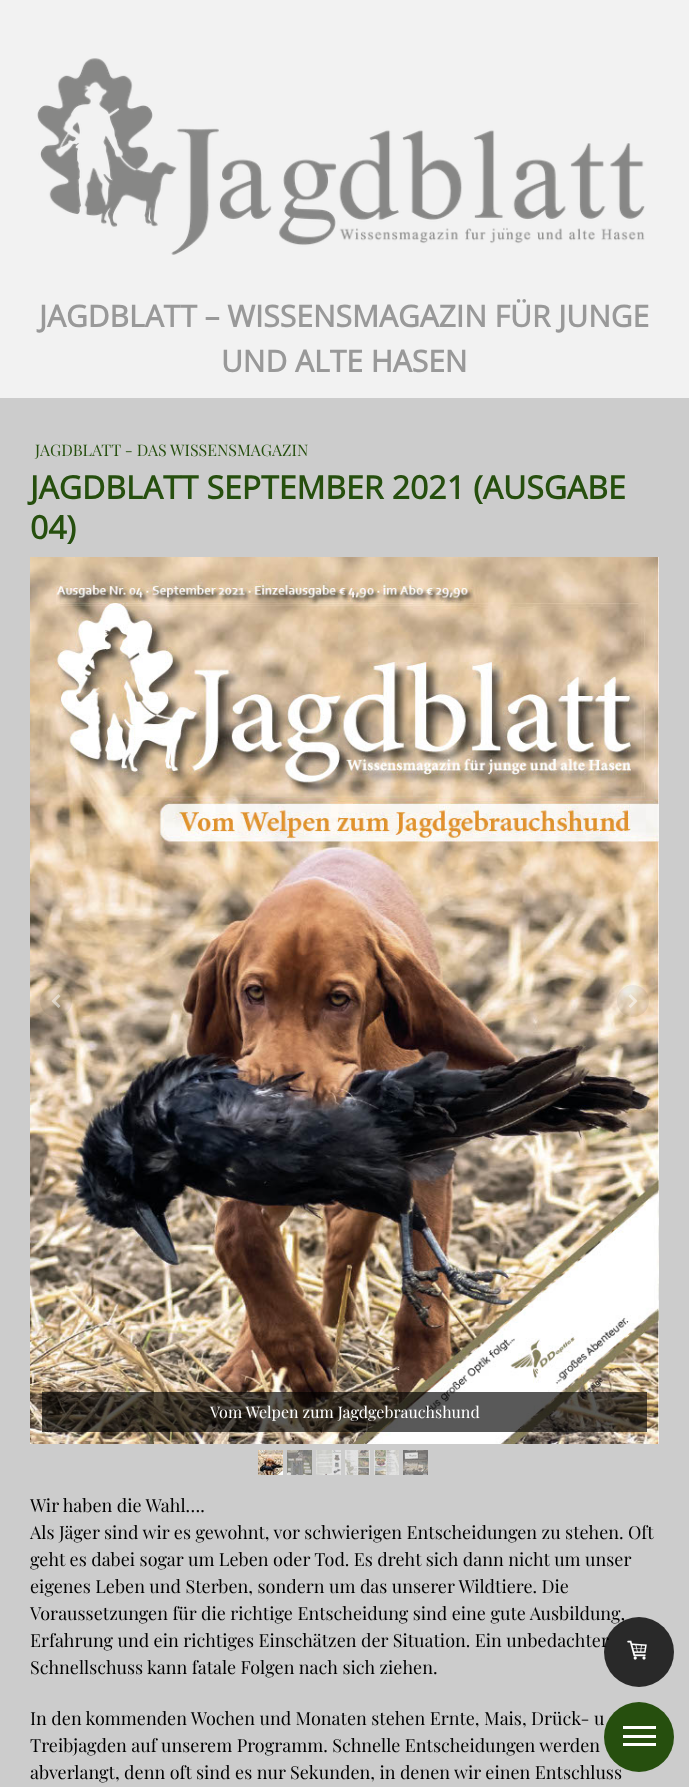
async function draw(canvas) {
  canvas.width = 689
  canvas.height = 1787
  const ctx = canvas.getContext('2d')
  ctx.miterLimit = 4
  ctx.fontKerning = 'normal'
  async function loadImage(src) {
    const img = new Image()
    img.src = src
    await img.decode()
    return img
  }

  ctx.fillStyle = '#f2f2f2'
  ctx.fillRect(0, 0, 689, 1787)
  ctx.drawImage(await loadImage('image0.png'), 37, 58, 608, 197)
  ctx.font = 'bold 30px Open Sans'
  ctx.fillStyle = '#999'
  ctx.fillText('JAGDBLATT – WISSENSMAGAZIN FÜR JUNGE', 39, 327)
  ctx.fillText('UND ALTE HASEN', 221, 372)
  ctx.fillStyle = '#ccc'
  ctx.fillRect(0, 398, 689, 1389)
  ctx.font = '16px Playfair Display'
  ctx.fillStyle = '#264f0e'
  ctx.fillText('JAGDBLATT - DAS WISSENSMAGAZIN', 35, 456)
  ctx.font = 'bold 32px Open Sans'
  ctx.fillText('JAGDBLATT SEPTEMBER 2021 (AUSGABE', 30, 499)
  ctx.fillText('04)', 30, 539)
  ctx.drawImage(await loadImage('image3.png'), 30, 557, 629, 887)
  ctx.fillStyle = '#00000012'
  ctx.beginPath()
  ctx.arc(56, 1001, 16, 0, 2 * Math.PI)
  ctx.fill()
  ctx.drawImage(await loadImage('image1.png'), 51, 994, 10, 14)
  ctx.beginPath()
  ctx.arc(633, 1001, 16, 0, 2 * Math.PI)
  ctx.fill()
  ctx.drawImage(await loadImage('image2.png'), 628, 994, 10, 14)
  ctx.fillStyle = '#000000a6'
  ctx.fillRect(42, 1392, 605, 40)
  ctx.font = '16px Playfair Display'
  ctx.fillStyle = '#fff'
  ctx.fillText('Vom Welpen zum Jagdgebrauchshund', 210, 1418)
  ctx.drawImage(await loadImage('image4.png'), 258, 1450, 25, 25)
  ctx.drawImage(await loadImage('image5.png'), 287, 1450, 25, 25)
  ctx.drawImage(await loadImage('image6.png'), 316, 1450, 25, 25)
  ctx.drawImage(await loadImage('image7.png'), 345, 1450, 25, 25)
  ctx.drawImage(await loadImage('image8.png'), 374, 1450, 25, 25)
  ctx.drawImage(await loadImage('image9.png'), 403, 1450, 25, 25)
  ctx.font = '18px Playfair Display'
  ctx.fillStyle = '#000'
  ctx.fillText('Wir haben die Wahl….', 30, 1512)
  ctx.fillText('Als Jäger sind wir es gewohnt, vor schwierigen Entscheidungen zu stehen. Oft', 30, 1539)
  ctx.fillText('geht es dabei sogar um Leben oder Tod. Es dreht sich dann nicht um unser', 30, 1566)
  ctx.fillText('eigenes Leben und Sterben, sondern um das unserer Wildtiere. Die', 30, 1593)
  ctx.fillText('Voraussetzungen für die richtige Entscheidung sind eine gute Ausbildung,', 30, 1620)
  ctx.fillText('Erfahrung und ein richtiges Einschätzen der Situation. Ein unbedachter', 30, 1647)
  ctx.fillText('Schnellschuss kann fatale Folgen nach sich ziehen.', 30, 1674)
  ctx.fillText('In den kommenden Wochen und Monaten stehen Ernte, Mais, Drück- u', 30, 1725)
  ctx.fillText('Treibjagden auf unserem Programm. Schnelle Entscheidungen werden', 30, 1752)
  ctx.fillText('abverlangt, denn oft sind es nur Sekunden, in denen wir einen Entschluss', 30, 1779)
  ctx.fillStyle = '#000000cc'
  ctx.beginPath()
  ctx.arc(639, 1652, 35, 0, 2 * Math.PI)
  ctx.fill()
  ctx.drawImage(await loadImage('image10.png'), 627, 1640, 20, 20)
  ctx.fillStyle = '#264f0e'
  ctx.beginPath()
  ctx.arc(639, 1737, 35, 0, 2 * Math.PI)
  ctx.fill()
  ctx.fillStyle = '#fff'
  ctx.fillRect(623, 1735, 33, 3)
  ctx.fillRect(623, 1726, 33, 3)
  ctx.fillRect(623, 1743, 33, 3)
}

draw(document.querySelector('canvas'))
